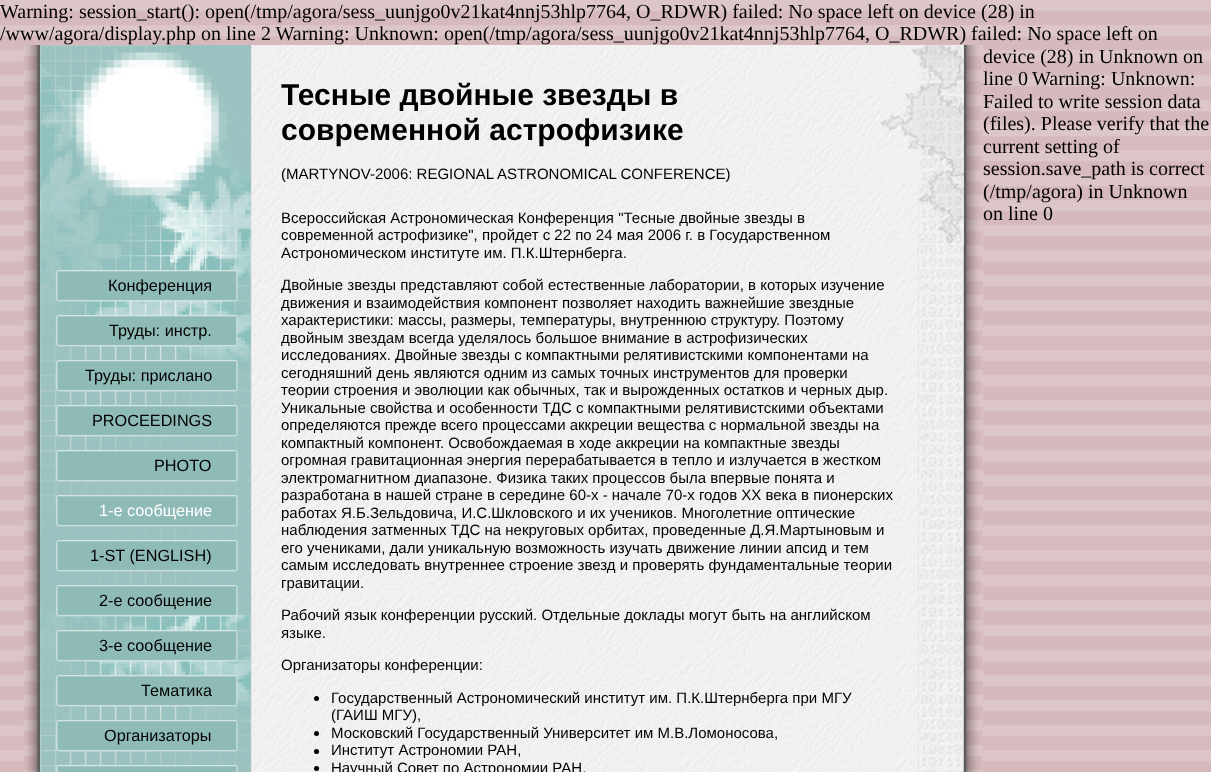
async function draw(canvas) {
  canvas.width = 1211
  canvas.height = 772
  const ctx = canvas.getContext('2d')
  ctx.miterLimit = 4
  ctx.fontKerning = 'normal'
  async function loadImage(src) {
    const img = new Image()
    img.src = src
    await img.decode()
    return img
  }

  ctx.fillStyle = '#ddc6c8'
  ctx.fillRect(0, 0, 1211, 772)
  ctx.drawImage(await loadImage('image0.png'), 0, 11, 1211, 761)
  ctx.font = '20px Liberation Serif'
  ctx.fillStyle = '#000'
  ctx.fillText('Warning: session_start(): open(/tmp/agora/sess_uunjgo0v21kat4nnj53hlp7764, O_RDWR) failed: No space left on device (28) in', 0, 18)
  ctx.fillText('/www/agora/display.php on line 2 Warning: Unknown: open(/tmp/agora/sess_uunjgo0v21kat4nnj53hlp7764, O_RDWR) failed: No space left on', 0, 40)
  ctx.fillText('device (28) in Unknown on', 983, 63)
  ctx.drawImage(await loadImage('image1.png'), 23, 45, 17, 727)
  ctx.drawImage(await loadImage('image2.png'), 40, 45, 212, 155)
  ctx.drawImage(await loadImage('image3.png'), 40, 200, 212, 70)
  ctx.drawImage(await loadImage('image4.png'), 40, 270, 212, 502)
  ctx.drawImage(await loadImage('image5.png'), 56, 270, 182, 32)
  ctx.font = '16.25px Liberation Sans'
  ctx.fillText('Конференция', 108, 291)
  ctx.drawImage(await loadImage('image6.png'), 56, 315, 182, 32)
  ctx.fillText('Труды: инстр.', 109, 336)
  ctx.drawImage(await loadImage('image7.png'), 56, 360, 182, 32)
  ctx.fillText('Труды: прислано', 85, 381)
  ctx.drawImage(await loadImage('image8.png'), 56, 405, 182, 32)
  ctx.fillText('PROCEEDINGS', 92, 426)
  ctx.drawImage(await loadImage('image9.png'), 56, 450, 182, 32)
  ctx.fillText('PHOTO', 154, 471)
  ctx.drawImage(await loadImage('image10.png'), 56, 495, 182, 32)
  ctx.fillStyle = '#fff'
  ctx.fillText('1-е сообщение', 99, 516)
  ctx.drawImage(await loadImage('image11.png'), 56, 540, 182, 32)
  ctx.fillStyle = '#000'
  ctx.fillText('1-ST (ENGLISH)', 90, 561)
  ctx.drawImage(await loadImage('image12.png'), 56, 585, 182, 32)
  ctx.fillText('2-е сообщение', 99, 606)
  ctx.drawImage(await loadImage('image13.png'), 56, 630, 182, 32)
  ctx.fillText('3-е сообщение', 99, 651)
  ctx.drawImage(await loadImage('image14.png'), 56, 675, 182, 32)
  ctx.fillText('Тематика', 141, 696)
  ctx.drawImage(await loadImage('image15.png'), 56, 720, 182, 32)
  ctx.fillText('Организаторы', 104, 741)
  ctx.drawImage(await loadImage('image16.png'), 56, 765, 182, 7)
  ctx.drawImage(await loadImage('image17.png'), 251, 45, 668, 727)
  ctx.font = 'bold 30px Liberation Sans'
  ctx.fillText('Тесные двойные звезды в', 281, 105)
  ctx.fillText('современной астрофизике', 281, 140)
  ctx.font = '15px Liberation Sans'
  ctx.fillText('(MARTYNOV-2006: REGIONAL ASTRONOMICAL CONFERENCE)', 281, 179)
  ctx.drawImage(await loadImage('image18.png'), 880, 45, 39, 139)
  ctx.fillText('Всероссийская Астрономическая Конференция "Тесные двойные звезды в', 281, 223)
  ctx.fillText('современной астрофизике", пройдет с 22 по 24 мая 2006 г. в Государственном', 281, 240)
  ctx.fillText('Астрономическом институте им. П.К.Штернберга.', 281, 258)
  ctx.fillText('Двойные звезды представляют собой естественные лаборатории, в которых изучение', 281, 290)
  ctx.fillText('движения и взаимодействия компонент позволяет находить важнейшие звездные', 281, 308)
  ctx.fillText('характеристики: массы, размеры, температуры, внутреннюю структуру. Поэтому', 281, 325)
  ctx.fillText('двойным звездам всегда уделялось большое внимание в астрофизических', 281, 343)
  ctx.fillText('исследованиях. Двойные звезды с компактными релятивистскими компонентами на', 281, 360)
  ctx.fillText('сегодняшний день являются одним из самых точных инструментов для проверки', 281, 378)
  ctx.fillText('теории строения и эволюции как обычных, так и вырожденных остатков и черных дыр.', 281, 395)
  ctx.fillText('Уникальные свойства и особенности ТДС с компактными релятивистскими объектами', 281, 413)
  ctx.fillText('определяются прежде всего процессами аккреции вещества с нормальной звезды на', 281, 430)
  ctx.fillText('компактный компонент. Освобождаемая в ходе аккреции на компактные звезды', 281, 448)
  ctx.fillText('огромная гравитационная энергия перерабатывается в тепло и излучается в жестком', 281, 465)
  ctx.fillText('электромагнитном диапазоне. Физика таких процессов была впервые понята и', 281, 483)
  ctx.fillText('разработана в нашей стране в середине 60-х - начале 70-х годов XX века в пионерских', 281, 500)
  ctx.fillText('работах Я.Б.Зельдовича, И.С.Шкловского и их учеников. Многолетние оптические', 281, 518)
  ctx.fillText('наблюдения затменных ТДС на некруговых орбитах, проведенные Д.Я.Мартыновым и', 281, 535)
  ctx.fillText('его учениками, дали уникальную возможность изучать движение линии апсид и тем', 281, 553)
  ctx.fillText('самым исследовать внутреннее строение звезд и проверять фундаментальные теории', 281, 570)
  ctx.fillText('гравитации.', 281, 588)
  ctx.fillText('Рабочий язык конференции русский. Отдельные доклады могут быть на английском', 281, 620)
  ctx.fillText('языке.', 281, 638)
  ctx.fillText('Организаторы конференции:', 281, 670)
  ctx.beginPath()
  ctx.arc(316.5, 698.5, 2.5, 0, 2 * Math.PI)
  ctx.fill()
  ctx.fillText('Государственный Астрономический институт им. П.К.Штернберга при МГУ', 331, 703)
  ctx.fillText('(ГАИШ МГУ),', 331, 720)
  ctx.beginPath()
  ctx.arc(316.5, 733.5, 2.5, 0, 2 * Math.PI)
  ctx.fill()
  ctx.fillText('Московский Государственный Университет им М.В.Ломоносова,', 331, 738)
  ctx.beginPath()
  ctx.arc(316.5, 751.5, 2.5, 0, 2 * Math.PI)
  ctx.fill()
  ctx.fillText('Институт Астрономии РАН,', 331, 755)
  ctx.beginPath()
  ctx.arc(316.5, 768.5, 2.5, 0, 2 * Math.PI)
  ctx.fill()
  ctx.fillText('Научный Совет по Астрономии РАН,', 331, 773)
  ctx.drawImage(await loadImage('image19.png'), 919, 45, 45, 727)
  ctx.fillStyle = '#ddc6c8'
  ctx.fillRect(982, 45, 1, 727)
  ctx.drawImage(await loadImage('image22.png'), 963, 45, 20, 727)
  ctx.drawImage(await loadImage('image20.png'), 918, 45, 46, 139)
  ctx.drawImage(await loadImage('image21.png'), 918, 183, 46, 62)
  ctx.font = '20px Liberation Serif'
  ctx.fillStyle = '#000'
  ctx.fillText('line 0', 983, 85)
  ctx.fillText('Warning: Unknown:', 1032, 85)
  ctx.fillText('Failed to write session data', 983, 108)
  ctx.fillText('(files). Please verify that the', 983, 130)
  ctx.fillText('current setting of', 983, 153)
  ctx.fillText('session.save_path is correct', 983, 175)
  ctx.fillText('(/tmp/agora) in Unknown', 983, 198)
  ctx.fillText('on line 0', 983, 220)
}

draw(document.querySelector('canvas'))
